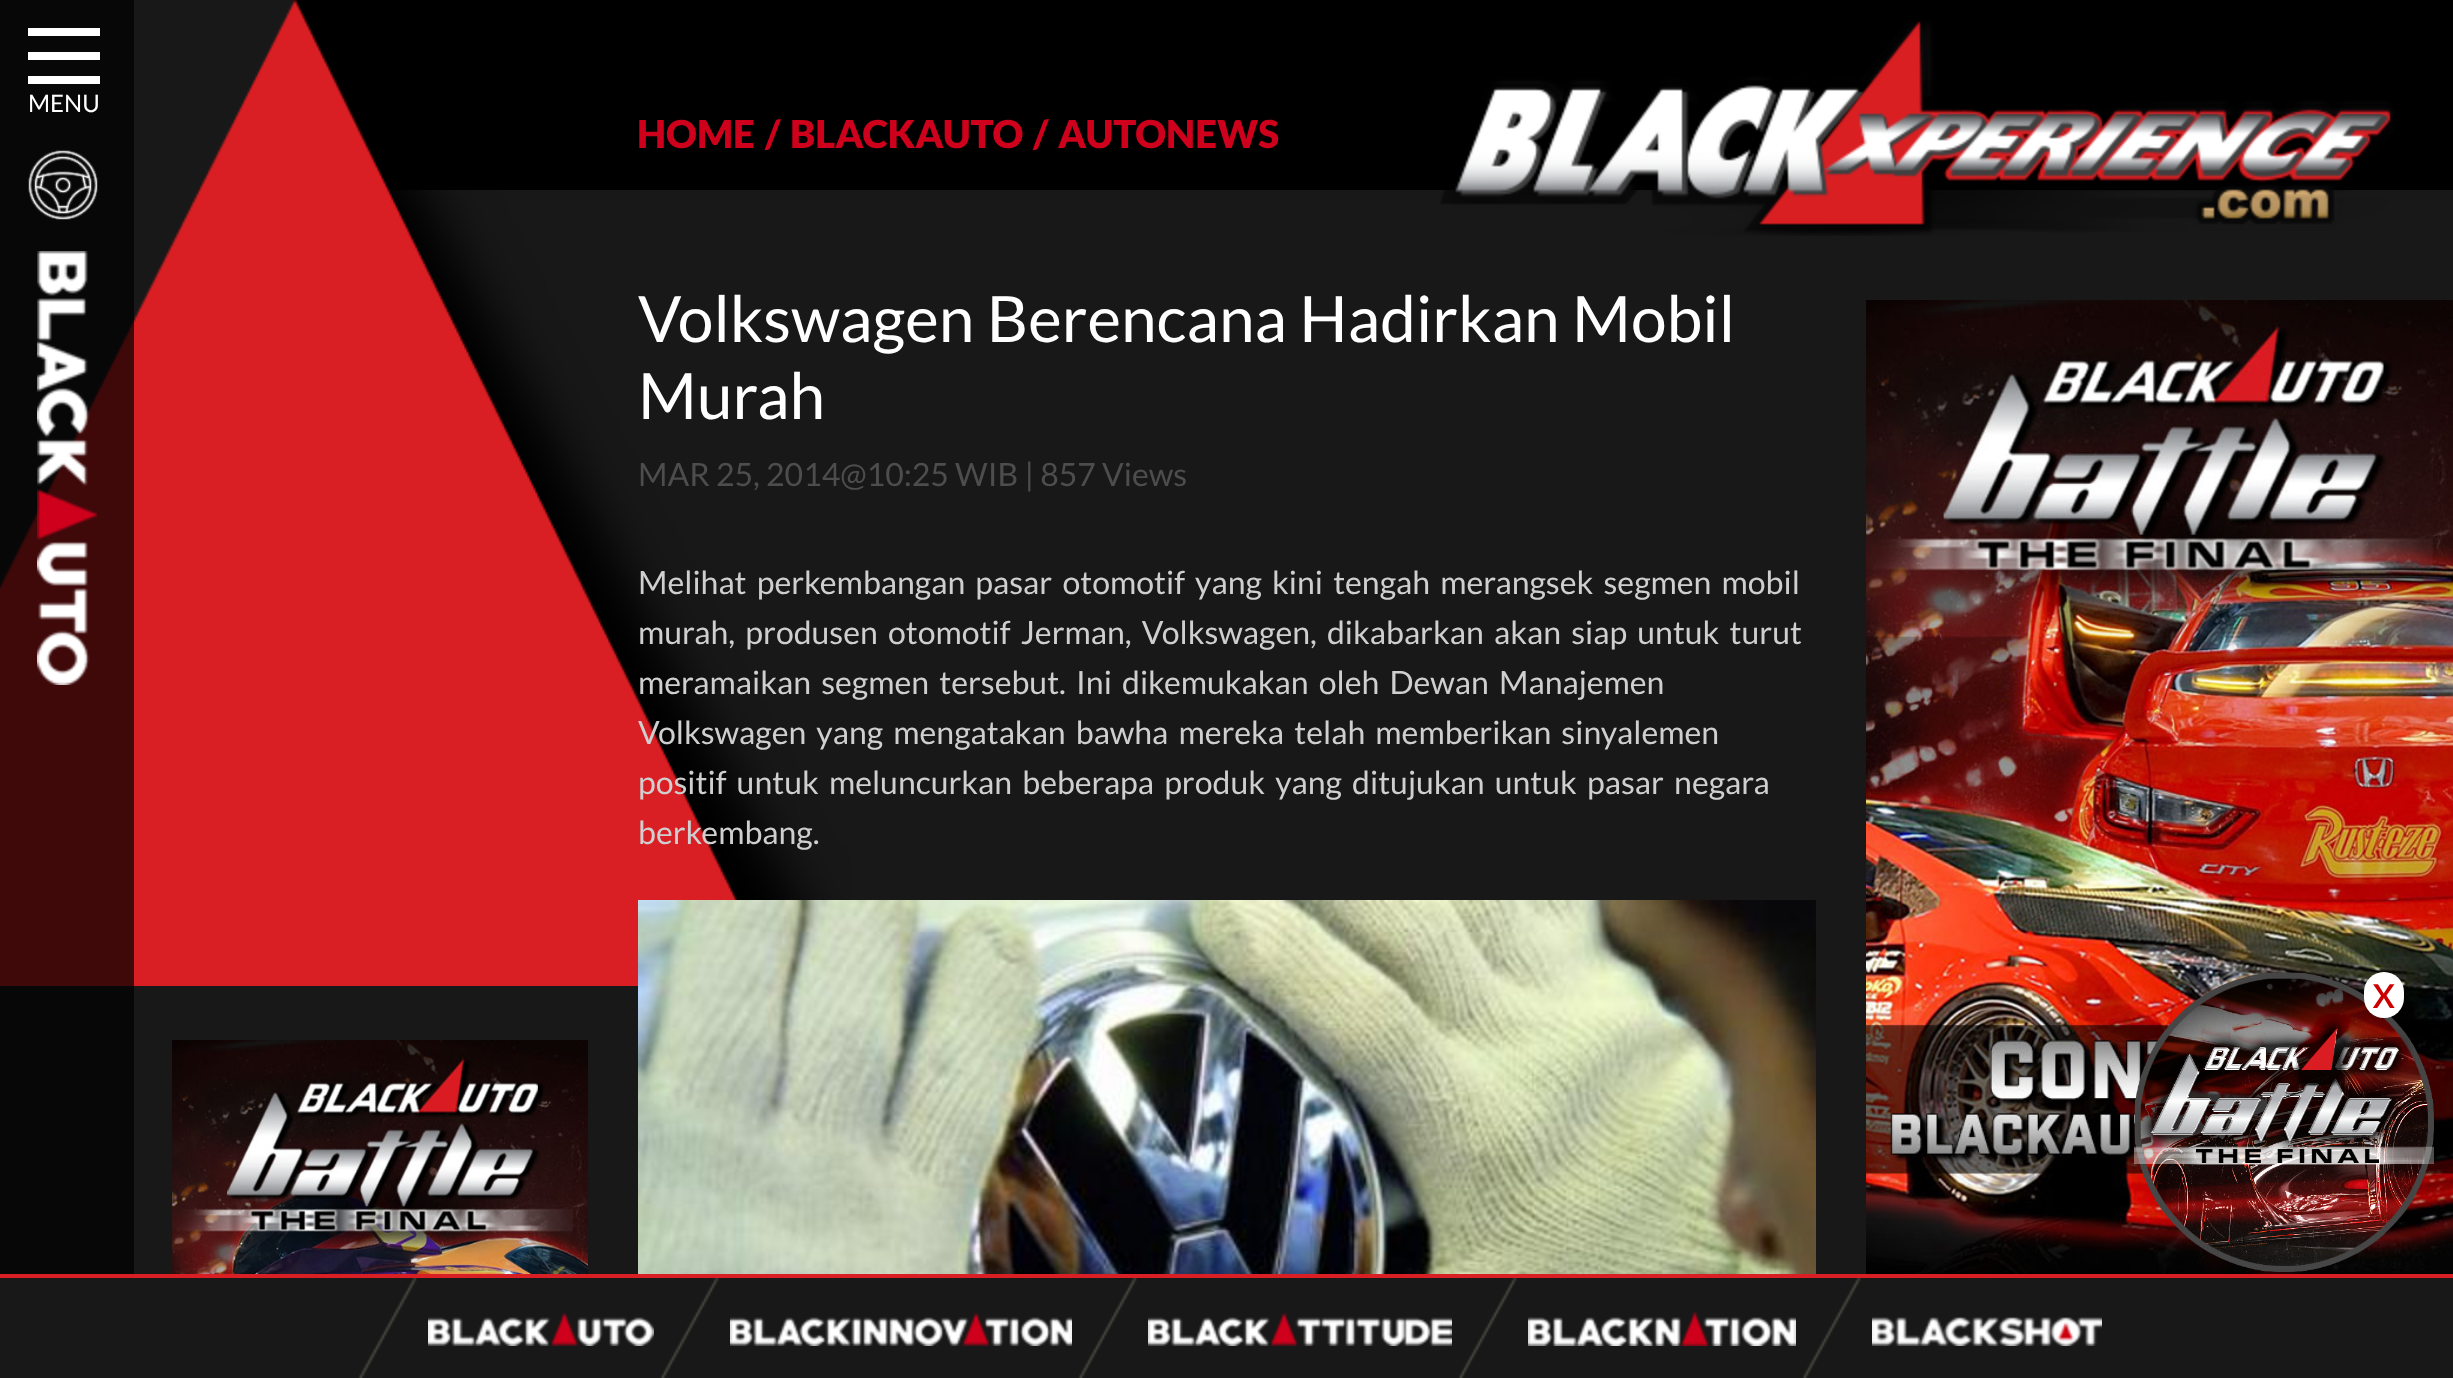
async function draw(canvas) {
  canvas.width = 2453
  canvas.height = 1378
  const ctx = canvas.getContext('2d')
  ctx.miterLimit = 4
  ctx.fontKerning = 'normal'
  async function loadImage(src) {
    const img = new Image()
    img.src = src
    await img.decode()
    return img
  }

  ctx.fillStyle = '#181818'
  ctx.fillRect(0, 0, 2453, 1378)
  ctx.fillStyle = '#000'
  ctx.fillRect(294, 0, 2159, 190)
  ctx.drawImage(await loadImage('image2.png'), 0, 0, 851, 986)
  ctx.fillStyle = '#000000b5'
  ctx.fillRect(0, 0, 134, 1274)
  ctx.fillStyle = '#fff'
  ctx.fillRect(28, 28, 72, 8)
  ctx.fillRect(28, 52, 72, 8)
  ctx.fillRect(28, 76, 72, 8)
  ctx.font = '24px Lato'
  ctx.fillText('MENU', 28, 112)
  ctx.drawImage(await loadImage('image0.png'), 28, 150, 70, 70)
  ctx.drawImage(await loadImage('image1.png'), 37, 251, 60, 434)
  ctx.font = '900 38.5px Lato'
  ctx.fillStyle = '#cf001c'
  ctx.fillText('HOME', 637, 148)
  ctx.fillText('/', 765, 148)
  ctx.fillText('BLACKAUTO', 790, 148)
  ctx.fillText('/', 1033, 148)
  ctx.fillText('AUTONEWS', 1058, 148)
  ctx.drawImage(await loadImage('image3.png'), 1440, 21, 954, 215)
  ctx.drawImage(await loadImage('image4.png'), 172, 1040, 416, 234)
  ctx.font = '64px Lato'
  ctx.fillStyle = '#fff'
  ctx.fillText('Volkswagen Berencana Hadirkan Mobil', 638, 342)
  ctx.fillText('Murah', 638, 419)
  ctx.font = '32px Lato'
  ctx.fillStyle = '#4d4d4d'
  ctx.fillText('MAR 25, 2014@10:25 WIB | 857 Views', 638, 486)
  ctx.wordSpacing = '4px'
  ctx.fillStyle = '#cfcfcf'
  ctx.fillText('Melihat perkembangan pasar otomotif yang kini tengah merangsek segmen mobil', 638, 594)
  ctx.fillText('murah, produsen otomotif Jerman, Volkswagen, dikabarkan akan siap untuk turut', 638, 644)
  ctx.fillText('meramaikan segmen tersebut. Ini dikemukakan oleh Dewan Manajemen', 638, 694)
  ctx.fillText('Volkswagen yang mengatakan bawha mereka telah memberikan sinyalemen', 638, 744)
  ctx.fillText('positif untuk meluncurkan beberapa produk yang ditujukan untuk pasar negara', 638, 794)
  ctx.wordSpacing = '0px'
  ctx.fillText('berkembang.', 638, 844)
  ctx.drawImage(await loadImage('image5.png'), 638, 900, 1178, 374)
  ctx.drawImage(await loadImage('image6.png'), 1866, 300, 587, 974)
  ctx.drawImage(await loadImage('image7.png'), 2134, 972, 300, 300)
  ctx.fillStyle = '#fff'
  ctx.beginPath()
  ctx.roundRect(2364, 972, 40, 46, 20)
  ctx.fill()
  ctx.font = 'bold 32px Lato'
  ctx.fillStyle = '#c00'
  ctx.fillText('X', 2373, 1008)
  ctx.fillStyle = '#da1f24'
  ctx.fillRect(0, 1274, 2453, 4)
  ctx.drawImage(await loadImage('image8.png'), 358, 1278, 59, 100)
  ctx.drawImage(await loadImage('image9.png'), 428, 1312, 226, 34)
  ctx.drawImage(await loadImage('image8.png'), 660, 1278, 59, 100)
  ctx.drawImage(await loadImage('image10.png'), 730, 1312, 342, 34)
  ctx.drawImage(await loadImage('image8.png'), 1078, 1278, 59, 100)
  ctx.drawImage(await loadImage('image11.png'), 1148, 1312, 304, 34)
  ctx.drawImage(await loadImage('image8.png'), 1458, 1278, 59, 100)
  ctx.drawImage(await loadImage('image12.png'), 1528, 1312, 268, 34)
  ctx.drawImage(await loadImage('image8.png'), 1802, 1278, 59, 100)
  ctx.drawImage(await loadImage('image13.png'), 1872, 1317, 230, 29)
}

draw(document.querySelector('canvas'))
